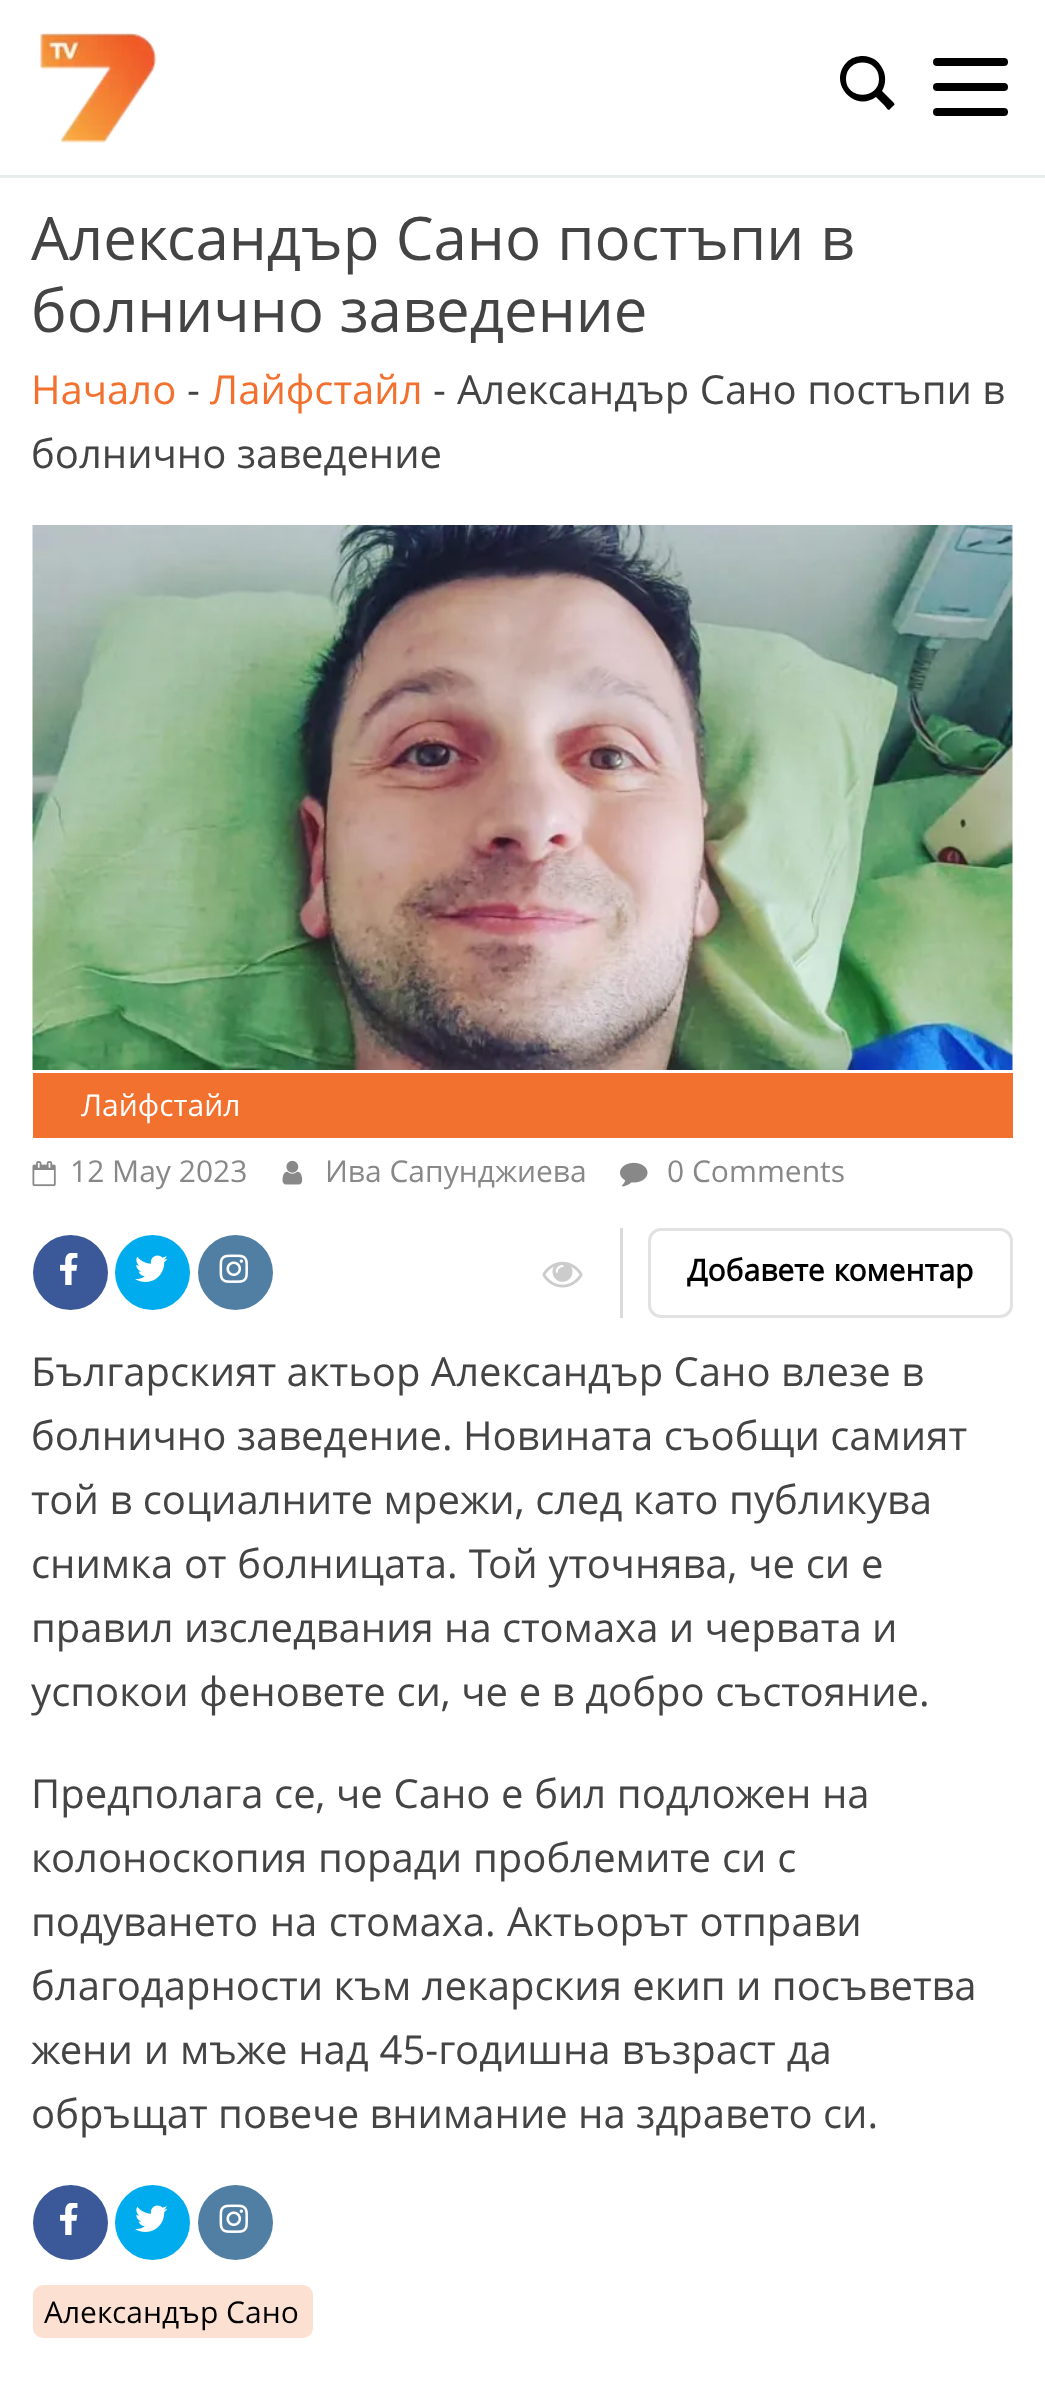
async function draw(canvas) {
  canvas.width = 1045
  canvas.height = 2403
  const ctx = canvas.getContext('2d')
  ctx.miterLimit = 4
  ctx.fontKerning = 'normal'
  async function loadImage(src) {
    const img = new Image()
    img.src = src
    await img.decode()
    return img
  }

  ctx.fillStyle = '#fff'
  ctx.fillRect(0, 0, 1045, 2403)
  ctx.fillStyle = '#e8edee'
  ctx.fillRect(0, 175, 1045, 3)
  ctx.drawImage(await loadImage('image0.png'), 40, 32, 117, 111)
  ctx.fillStyle = '#000'
  ctx.beginPath()
  ctx.moveTo(863, 56)
  ctx.bezierCurveTo(880, 56, 891, 76, 882, 91)
  ctx.lineTo(892, 101)
  ctx.bezierCurveTo(896, 105, 895, 104, 891, 108)
  ctx.bezierCurveTo(888, 112, 888, 109, 884, 105)
  ctx.lineTo(876, 97)
  ctx.bezierCurveTo(854, 113, 827, 82, 847, 62)
  ctx.bezierCurveTo(851, 58, 857, 56, 863, 56)
  ctx.closePath()
  ctx.moveTo(846, 79)
  ctx.bezierCurveTo(846, 100, 879, 100, 879, 79)
  ctx.bezierCurveTo(879, 57, 846, 57, 846, 79)
  ctx.closePath()
  ctx.fill()
  ctx.beginPath()
  ctx.roundRect(933, 83, 75, 8, 4)
  ctx.fill()
  ctx.beginPath()
  ctx.roundRect(933, 58, 75, 8, 4)
  ctx.fill()
  ctx.beginPath()
  ctx.roundRect(933, 108, 75, 8, 4)
  ctx.fill()
  ctx.wordSpacing = '0.5px'
  ctx.font = '60px Open Sans'
  ctx.fillStyle = '#444'
  ctx.fillText('Александър Сано постъпи в', 31, 260)
  ctx.wordSpacing = '0px'
  ctx.fillText('болнично заведение', 31, 332)
  ctx.font = '40px Open Sans'
  ctx.fillStyle = '#f2712f'
  ctx.fillText('Начало', 31, 404)
  ctx.fillStyle = '#444'
  ctx.fillText('-', 187, 404)
  ctx.fillStyle = '#f2712f'
  ctx.fillText('Лайфстайл', 210, 404)
  ctx.fillStyle = '#444'
  ctx.fillText('-', 433, 404)
  ctx.fillText('Александър Сано постъпи в', 457, 404)
  ctx.fillText('болнично заведение', 31, 468)
  ctx.drawImage(await loadImage('image1.png'), 32, 525, 981, 545)
  ctx.fillStyle = '#f2712f'
  ctx.fillRect(33, 1073, 980, 65)
  ctx.font = '30px Open Sans'
  ctx.fillStyle = '#fff'
  ctx.fillText('Лайфстайл', 81, 1116)
  ctx.drawImage(await loadImage('image2.png'), 32, 1161, 24, 26)
  ctx.fillStyle = '#888'
  ctx.fillText('12 May 2023', 70, 1182)
  ctx.drawImage(await loadImage('image3.png'), 282, 1160, 21, 25)
  ctx.fillText('Ива Cапунджиева', 325, 1182)
  ctx.drawImage(await loadImage('image4.png'), 620, 1162, 28, 25)
  ctx.fillText('0 Comments', 667, 1182)
  ctx.fillStyle = '#3b5998'
  ctx.beginPath()
  ctx.arc(70.5, 1272.5, 37.5, 0, 2 * Math.PI)
  ctx.fill()
  ctx.drawImage(await loadImage('image5.png'), 60, 1253, 18, 32)
  ctx.fillStyle = '#00aced'
  ctx.beginPath()
  ctx.arc(152.5, 1272.5, 37.5, 0, 2 * Math.PI)
  ctx.fill()
  ctx.drawImage(await loadImage('image6.png'), 135, 1255, 33, 27)
  ctx.fillStyle = '#517fa4'
  ctx.beginPath()
  ctx.arc(235.5, 1272.5, 37.5, 0, 2 * Math.PI)
  ctx.fill()
  ctx.drawImage(await loadImage('image7.png'), 219, 1254, 29, 29)
  ctx.fillStyle = '#dadada'
  ctx.fillRect(620, 1228, 3, 90)
  ctx.drawImage(await loadImage('image8.png'), 542, 1261, 41, 27)
  ctx.beginPath()
  ctx.roundRect(649.5, 1229.5, 362, 87, 11.5)
  ctx.strokeStyle = '#e2e2e2'
  ctx.lineWidth = 3
  ctx.stroke()
  ctx.wordSpacing = '1px'
  ctx.font = 'bold 30px Open Sans'
  ctx.fillStyle = '#000'
  ctx.fillText('Добавете коментар', 687, 1281)
  ctx.wordSpacing = '0px'
  ctx.font = '40px Open Sans'
  ctx.fillStyle = '#444'
  ctx.fillText('Българският актьор Александър Сано влезе в', 31, 1386)
  ctx.fillText('болнично заведение. Новината съобщи самият', 31, 1450)
  ctx.wordSpacing = '0.25px'
  ctx.fillText('той в социалните мрежи, след като публикува', 31, 1514)
  ctx.wordSpacing = '0.5px'
  ctx.fillText('снимка от болницата. Той уточнява, че си е', 31, 1578)
  ctx.wordSpacing = '0px'
  ctx.fillText('правил изследвания на стомаха и червата и', 31, 1642)
  ctx.wordSpacing = '0.25px'
  ctx.fillText('успокои феновете си, че е в добро състояние.', 31, 1706)
  ctx.fillText('Предполага се, че Сано е бил подложен на', 31, 1808)
  ctx.wordSpacing = '0.5px'
  ctx.fillText('колоноскопия поради проблемите си с', 31, 1872)
  ctx.wordSpacing = '1px'
  ctx.fillText('подуването на стомаха. Актьорът отправи', 31, 1936)
  ctx.wordSpacing = '0px'
  ctx.fillText('благодарности към лекарския екип и посъветва', 31, 2000)
  ctx.wordSpacing = '0.5px'
  ctx.fillText('жени и мъже над 45-годишна възраст да', 31, 2064)
  ctx.wordSpacing = '0px'
  ctx.fillText('обръщат повече внимание на здравето си.', 31, 2128)
  ctx.fillStyle = '#3b5998'
  ctx.beginPath()
  ctx.arc(70.5, 2222.5, 37.5, 0, 2 * Math.PI)
  ctx.fill()
  ctx.drawImage(await loadImage('image5.png'), 60, 2203, 18, 32)
  ctx.fillStyle = '#00aced'
  ctx.beginPath()
  ctx.arc(152.5, 2222.5, 37.5, 0, 2 * Math.PI)
  ctx.fill()
  ctx.drawImage(await loadImage('image6.png'), 135, 2205, 33, 27)
  ctx.fillStyle = '#517fa4'
  ctx.beginPath()
  ctx.arc(235.5, 2222.5, 37.5, 0, 2 * Math.PI)
  ctx.fill()
  ctx.drawImage(await loadImage('image7.png'), 219, 2204, 29, 29)
  ctx.fillStyle = '#fce0d1'
  ctx.beginPath()
  ctx.roundRect(33, 2285, 280, 53, 10)
  ctx.fill()
  ctx.font = '30px Open Sans'
  ctx.fillStyle = '#000'
  ctx.fillText('Александър Сано', 44, 2323)
}

draw(document.querySelector('canvas'))
